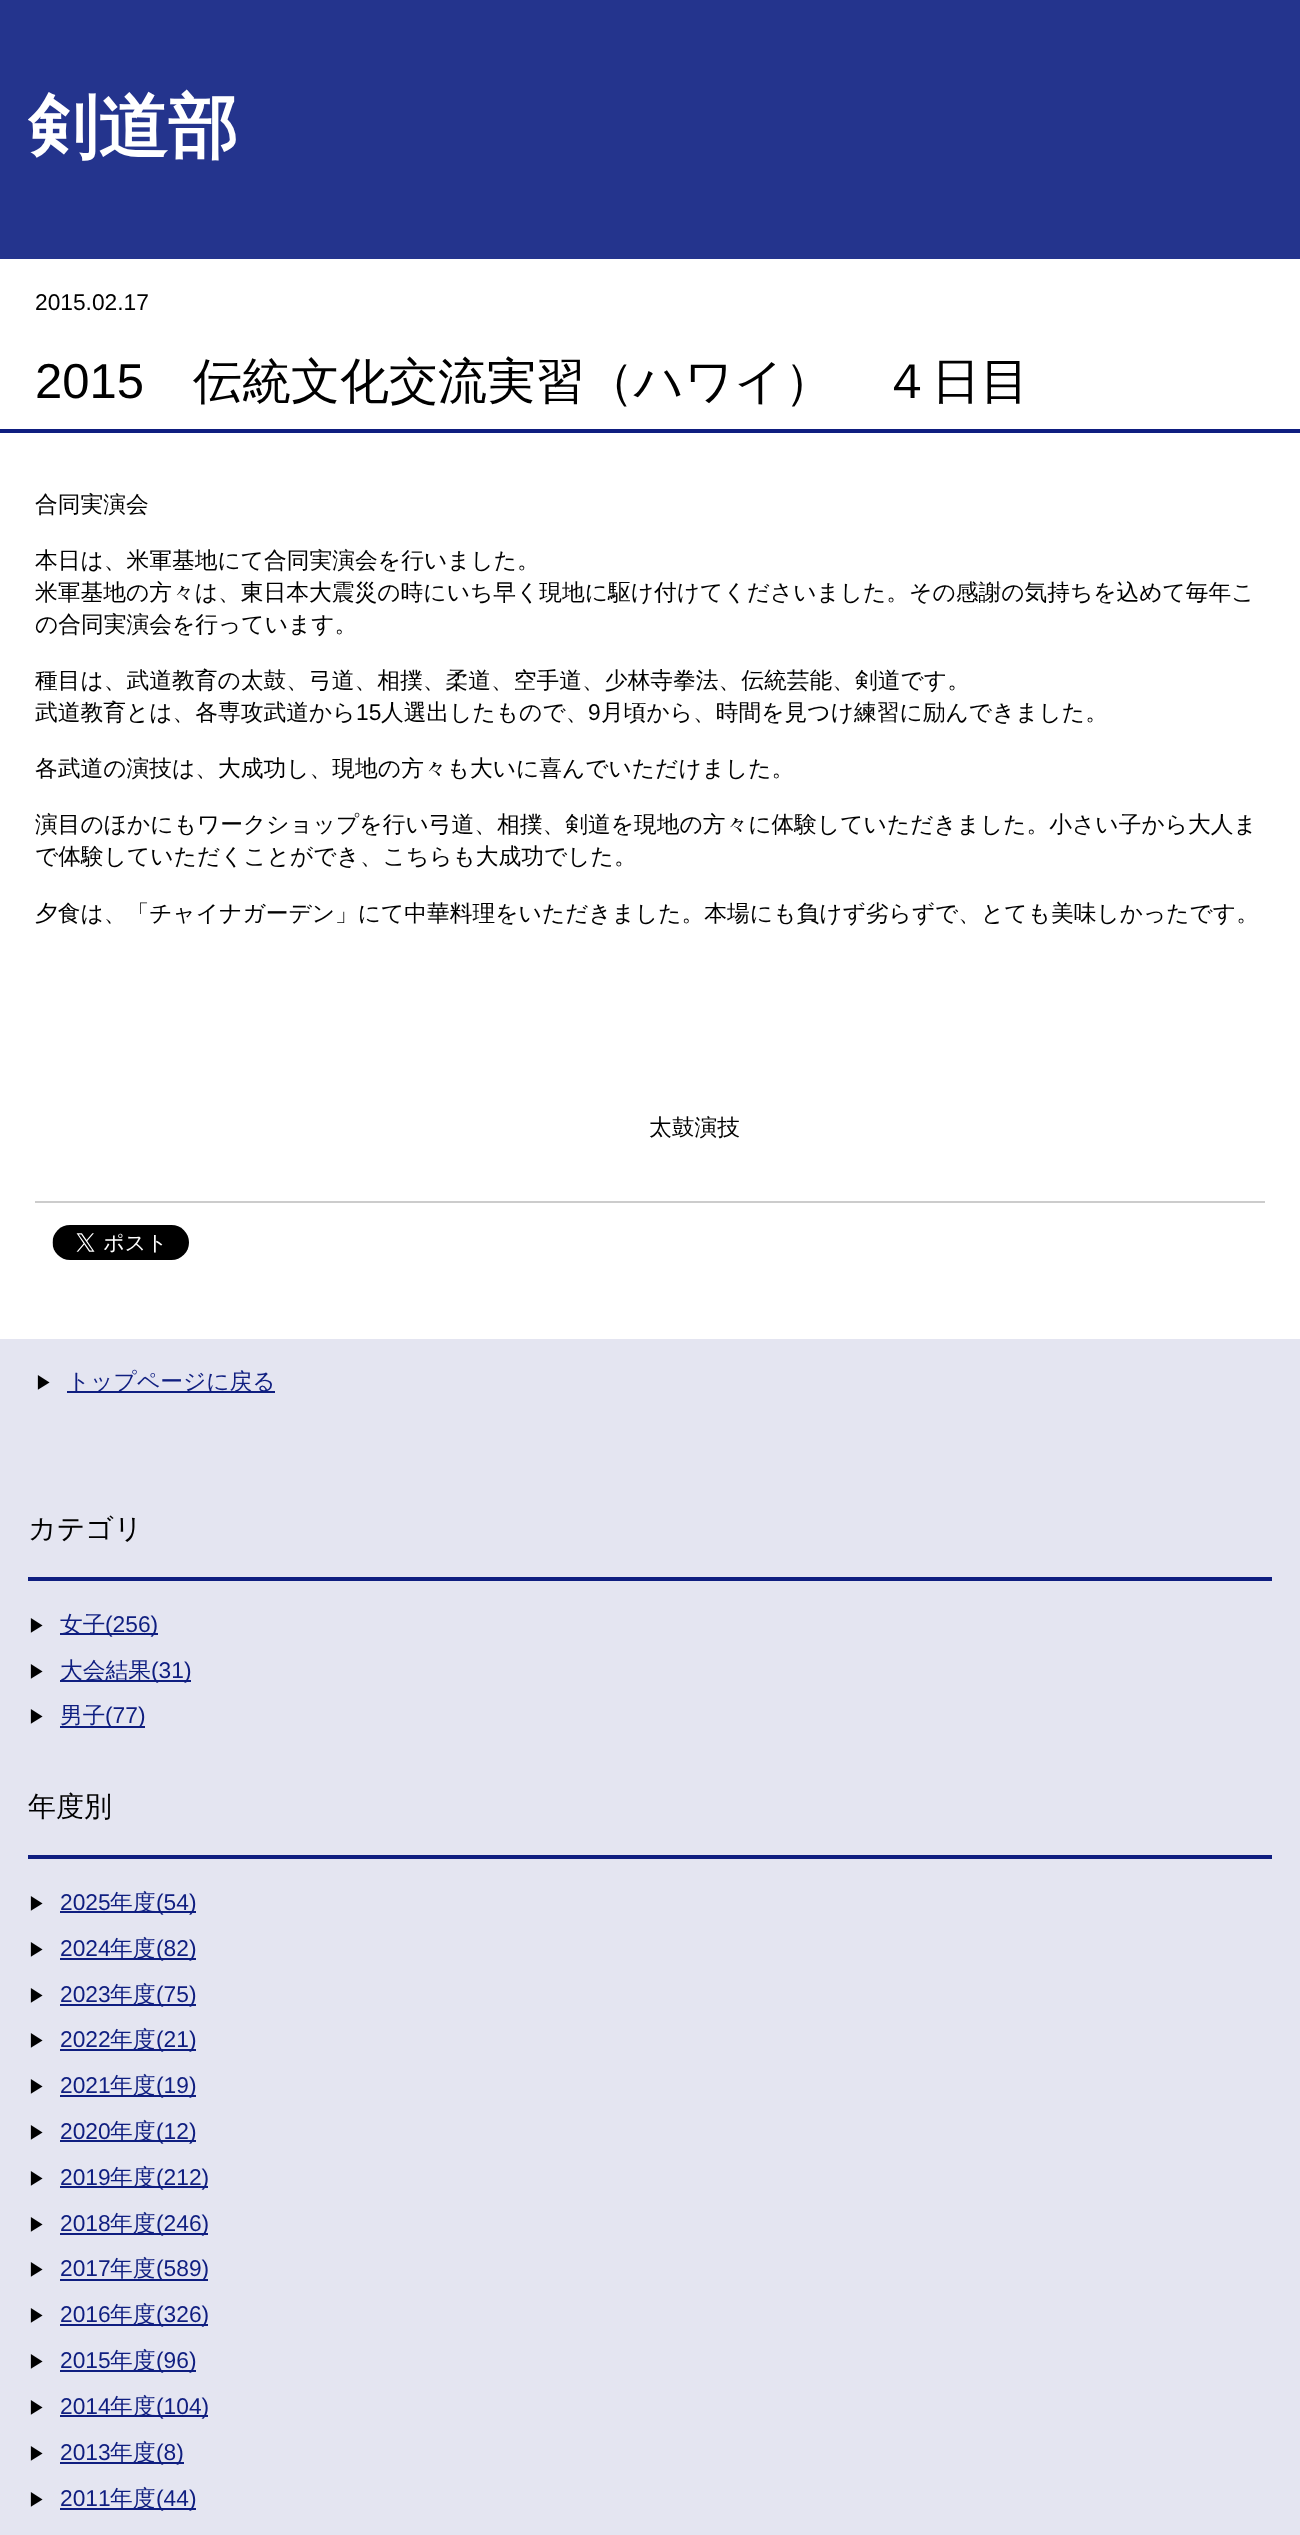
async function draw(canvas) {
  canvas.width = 1300
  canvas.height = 2535
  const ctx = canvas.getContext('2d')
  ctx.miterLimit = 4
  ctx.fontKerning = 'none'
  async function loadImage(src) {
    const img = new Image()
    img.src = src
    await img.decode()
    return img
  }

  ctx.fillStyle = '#24348d'
  ctx.fillRect(0, 0, 1300, 2535)
  ctx.font = 'bold 70px WenQuanYi Zen Hei'
  ctx.fillStyle = '#fff'
  ctx.fillText('剣道部', 28, 151)
  ctx.fillStyle = '#e4e5f1'
  ctx.fillRect(0, 1339, 1300, 1196)
  ctx.fillStyle = '#fff'
  ctx.fillRect(0, 259, 1300, 1080)
  ctx.font = '22.75px Liberation Sans'
  ctx.fillStyle = '#000'
  ctx.fillText('2015.02.17', 35, 310)
  ctx.fillStyle = '#0f1e80'
  ctx.fillRect(0, 429, 1300, 4)
  ctx.font = '49px Liberation Sans'
  ctx.fillStyle = '#000'
  ctx.fillText('2015', 35, 398)
  ctx.font = '500 49px WenQuanYi Zen Hei'
  ctx.fillText('伝統文化交流実習（ハワイ）　４日目', 193, 398)
  ctx.font = '500 22.75px WenQuanYi Zen Hei'
  ctx.fillText('合同実演会', 35, 512)
  ctx.fillText('本日は、米軍基地にて合同実演会を行いました。', 35, 568)
  ctx.fillText('米軍基地の方々は、東日本大震災の時にいち早く現地に駆け付けてくださいました。その感謝の気持ちを込めて毎年こ', 35, 600)
  ctx.fillText('の合同実演会を行っています。', 35, 632)
  ctx.fillText('種目は、武道教育の太鼓、弓道、相撲、柔道、空手道、少林寺拳法、伝統芸能、剣道です。', 35, 688)
  ctx.fillText('武道教育とは、各専攻武道から', 35, 720)
  ctx.font = '22.75px Liberation Sans'
  ctx.fillText('15', 356, 720)
  ctx.font = '500 22.75px WenQuanYi Zen Hei'
  ctx.fillText('人選出したもので、', 381, 720)
  ctx.font = '22.75px Liberation Sans'
  ctx.fillText('9', 588, 720)
  ctx.font = '500 22.75px WenQuanYi Zen Hei'
  ctx.fillText('月頃から、時間を見つけ練習に励んできました。', 601, 720)
  ctx.fillText('各武道の演技は、大成功し、現地の方々も大いに喜んでいただけました。', 35, 776)
  ctx.fillText('演目のほかにもワークショップを行い弓道、相撲、剣道を現地の方々に体験していただきました。小さい子から大人ま', 35, 832)
  ctx.fillText('で体験していただくことができ、こちらも大成功でした。', 35, 864)
  ctx.fillText('夕食は、「チャイナガーデン」にて中華料理をいただきました。本場にも負けず劣らずで、とても美味しかったです。', 35, 921)
  ctx.fillText('太鼓演技', 649, 1135)
  ctx.fillStyle = '#ccc'
  ctx.fillRect(35, 1201, 1230, 2)
  ctx.drawImage(await loadImage('image0.png'), 52, 1225, 137, 35)
  ctx.font = '500 18px WenQuanYi Zen Hei'
  ctx.fillStyle = '#000'
  ctx.fillText('▶︎', 35, 1389)
  ctx.fillStyle = '#0f1e80'
  ctx.fillRect(67, 1391, 208, 2)
  ctx.font = '500 22.75px WenQuanYi Zen Hei'
  ctx.fillText('トップページに戻る', 67, 1389)
  ctx.fillRect(28, 1577, 1244, 4)
  ctx.font = '500 28px WenQuanYi Zen Hei'
  ctx.fillStyle = '#000'
  ctx.fillText('カテゴリ', 28, 1538)
  ctx.font = '500 18px WenQuanYi Zen Hei'
  ctx.fillText('▶︎', 28, 1632)
  ctx.fillStyle = '#0f1e80'
  ctx.fillRect(60, 1633, 98, 2)
  ctx.font = '500 22.75px WenQuanYi Zen Hei'
  ctx.fillText('女子', 60, 1632)
  ctx.font = '22.75px Liberation Sans'
  ctx.fillText('(256)', 105, 1632)
  ctx.font = '500 18px WenQuanYi Zen Hei'
  ctx.fillStyle = '#000'
  ctx.fillText('▶︎', 28, 1678)
  ctx.fillStyle = '#0f1e80'
  ctx.fillRect(60, 1680, 131, 2)
  ctx.font = '500 22.75px WenQuanYi Zen Hei'
  ctx.fillText('大会結果', 60, 1678)
  ctx.font = '22.75px Liberation Sans'
  ctx.fillText('(31)', 151, 1678)
  ctx.font = '500 18px WenQuanYi Zen Hei'
  ctx.fillStyle = '#000'
  ctx.fillText('▶︎', 28, 1723)
  ctx.font = '500 22.75px WenQuanYi Zen Hei'
  ctx.fillStyle = '#0f1e80'
  ctx.fillText('男子', 60, 1723)
  ctx.fillRect(60, 1726, 85, 2)
  ctx.font = '22.75px Liberation Sans'
  ctx.fillText('(77)', 105, 1723)
  ctx.fillRect(28, 1855, 1244, 4)
  ctx.font = '500 28px WenQuanYi Zen Hei'
  ctx.fillStyle = '#000'
  ctx.fillText('年度別', 28, 1816)
  ctx.font = '500 18px WenQuanYi Zen Hei'
  ctx.fillText('▶︎', 28, 1910)
  ctx.font = '22.75px Liberation Sans'
  ctx.fillStyle = '#0f1e80'
  ctx.fillText('2025', 60, 1910)
  ctx.fillRect(60, 1911, 136, 2)
  ctx.font = '500 22.75px WenQuanYi Zen Hei'
  ctx.fillText('年度', 110, 1910)
  ctx.font = '22.75px Liberation Sans'
  ctx.fillText('(54)', 156, 1910)
  ctx.font = '500 18px WenQuanYi Zen Hei'
  ctx.fillStyle = '#000'
  ctx.fillText('▶︎', 28, 1956)
  ctx.font = '22.75px Liberation Sans'
  ctx.fillStyle = '#0f1e80'
  ctx.fillText('2024', 60, 1956)
  ctx.fillRect(60, 1958, 136, 2)
  ctx.font = '500 22.75px WenQuanYi Zen Hei'
  ctx.fillText('年度', 110, 1956)
  ctx.font = '22.75px Liberation Sans'
  ctx.fillText('(82)', 156, 1956)
  ctx.font = '500 18px WenQuanYi Zen Hei'
  ctx.fillStyle = '#000'
  ctx.fillText('▶︎', 28, 2002)
  ctx.font = '22.75px Liberation Sans'
  ctx.fillStyle = '#0f1e80'
  ctx.fillText('2023', 60, 2002)
  ctx.fillRect(60, 2004, 136, 2)
  ctx.font = '500 22.75px WenQuanYi Zen Hei'
  ctx.fillText('年度', 110, 2002)
  ctx.font = '22.75px Liberation Sans'
  ctx.fillText('(75)', 156, 2002)
  ctx.font = '500 18px WenQuanYi Zen Hei'
  ctx.fillStyle = '#000'
  ctx.fillText('▶︎', 28, 2047)
  ctx.font = '22.75px Liberation Sans'
  ctx.fillStyle = '#0f1e80'
  ctx.fillText('2022', 60, 2047)
  ctx.fillRect(60, 2049, 136, 2)
  ctx.font = '500 22.75px WenQuanYi Zen Hei'
  ctx.fillText('年度', 110, 2047)
  ctx.font = '22.75px Liberation Sans'
  ctx.fillText('(21)', 156, 2047)
  ctx.font = '500 18px WenQuanYi Zen Hei'
  ctx.fillStyle = '#000'
  ctx.fillText('▶︎', 28, 2093)
  ctx.font = '22.75px Liberation Sans'
  ctx.fillStyle = '#0f1e80'
  ctx.fillText('2021', 60, 2093)
  ctx.fillRect(60, 2095, 136, 2)
  ctx.font = '500 22.75px WenQuanYi Zen Hei'
  ctx.fillText('年度', 110, 2093)
  ctx.font = '22.75px Liberation Sans'
  ctx.fillText('(19)', 156, 2093)
  ctx.font = '500 18px WenQuanYi Zen Hei'
  ctx.fillStyle = '#000'
  ctx.fillText('▶︎', 28, 2139)
  ctx.font = '22.75px Liberation Sans'
  ctx.fillStyle = '#0f1e80'
  ctx.fillText('2020', 60, 2139)
  ctx.fillRect(60, 2140, 136, 2)
  ctx.font = '500 22.75px WenQuanYi Zen Hei'
  ctx.fillText('年度', 110, 2139)
  ctx.font = '22.75px Liberation Sans'
  ctx.fillText('(12)', 156, 2139)
  ctx.font = '500 18px WenQuanYi Zen Hei'
  ctx.fillStyle = '#000'
  ctx.fillText('▶︎', 28, 2185)
  ctx.font = '22.75px Liberation Sans'
  ctx.fillStyle = '#0f1e80'
  ctx.fillText('2019', 60, 2185)
  ctx.fillRect(60, 2186, 148, 2)
  ctx.font = '500 22.75px WenQuanYi Zen Hei'
  ctx.fillText('年度', 110, 2185)
  ctx.font = '22.75px Liberation Sans'
  ctx.fillText('(212)', 156, 2185)
  ctx.font = '500 18px WenQuanYi Zen Hei'
  ctx.fillStyle = '#000'
  ctx.fillText('▶︎', 28, 2231)
  ctx.font = '22.75px Liberation Sans'
  ctx.fillStyle = '#0f1e80'
  ctx.fillText('2018', 60, 2231)
  ctx.fillRect(60, 2233, 148, 2)
  ctx.font = '500 22.75px WenQuanYi Zen Hei'
  ctx.fillText('年度', 110, 2231)
  ctx.font = '22.75px Liberation Sans'
  ctx.fillText('(246)', 156, 2231)
  ctx.font = '500 18px WenQuanYi Zen Hei'
  ctx.fillStyle = '#000'
  ctx.fillText('▶︎', 28, 2276)
  ctx.font = '22.75px Liberation Sans'
  ctx.fillStyle = '#0f1e80'
  ctx.fillText('2017', 60, 2276)
  ctx.font = '500 22.75px WenQuanYi Zen Hei'
  ctx.fillText('年度', 110, 2276)
  ctx.fillRect(60, 2279, 148, 2)
  ctx.font = '22.75px Liberation Sans'
  ctx.fillText('(589)', 156, 2276)
  ctx.font = '500 18px WenQuanYi Zen Hei'
  ctx.fillStyle = '#000'
  ctx.fillText('▶︎', 28, 2322)
  ctx.font = '22.75px Liberation Sans'
  ctx.fillStyle = '#0f1e80'
  ctx.fillText('2016', 60, 2322)
  ctx.fillRect(60, 2324, 148, 2)
  ctx.font = '500 22.75px WenQuanYi Zen Hei'
  ctx.fillText('年度', 110, 2322)
  ctx.font = '22.75px Liberation Sans'
  ctx.fillText('(326)', 156, 2322)
  ctx.font = '500 18px WenQuanYi Zen Hei'
  ctx.fillStyle = '#000'
  ctx.fillText('▶︎', 28, 2368)
  ctx.font = '22.75px Liberation Sans'
  ctx.fillStyle = '#0f1e80'
  ctx.fillText('2015', 60, 2368)
  ctx.fillRect(60, 2370, 136, 2)
  ctx.font = '500 22.75px WenQuanYi Zen Hei'
  ctx.fillText('年度', 110, 2368)
  ctx.font = '22.75px Liberation Sans'
  ctx.fillText('(96)', 156, 2368)
  ctx.font = '500 18px WenQuanYi Zen Hei'
  ctx.fillStyle = '#000'
  ctx.fillText('▶︎', 28, 2414)
  ctx.font = '22.75px Liberation Sans'
  ctx.fillStyle = '#0f1e80'
  ctx.fillText('2014', 60, 2414)
  ctx.fillRect(60, 2415, 148, 2)
  ctx.font = '500 22.75px WenQuanYi Zen Hei'
  ctx.fillText('年度', 110, 2414)
  ctx.font = '22.75px Liberation Sans'
  ctx.fillText('(104)', 156, 2414)
  ctx.font = '500 18px WenQuanYi Zen Hei'
  ctx.fillStyle = '#000'
  ctx.fillText('▶︎', 28, 2460)
  ctx.font = '22.75px Liberation Sans'
  ctx.fillStyle = '#0f1e80'
  ctx.fillText('2013', 60, 2460)
  ctx.fillRect(60, 2462, 124, 2)
  ctx.font = '500 22.75px WenQuanYi Zen Hei'
  ctx.fillText('年度', 110, 2460)
  ctx.font = '22.75px Liberation Sans'
  ctx.fillText('(8)', 156, 2460)
  ctx.font = '500 18px WenQuanYi Zen Hei'
  ctx.fillStyle = '#000'
  ctx.fillText('▶︎', 28, 2506)
  ctx.font = '22.75px Liberation Sans'
  ctx.fillStyle = '#0f1e80'
  ctx.fillText('2011', 60, 2506)
  ctx.fillRect(60, 2508, 136, 2)
  ctx.font = '500 22.75px WenQuanYi Zen Hei'
  ctx.fillText('年度', 110, 2506)
  ctx.font = '22.75px Liberation Sans'
  ctx.fillText('(44)', 156, 2506)
}

draw(document.querySelector('canvas'))
